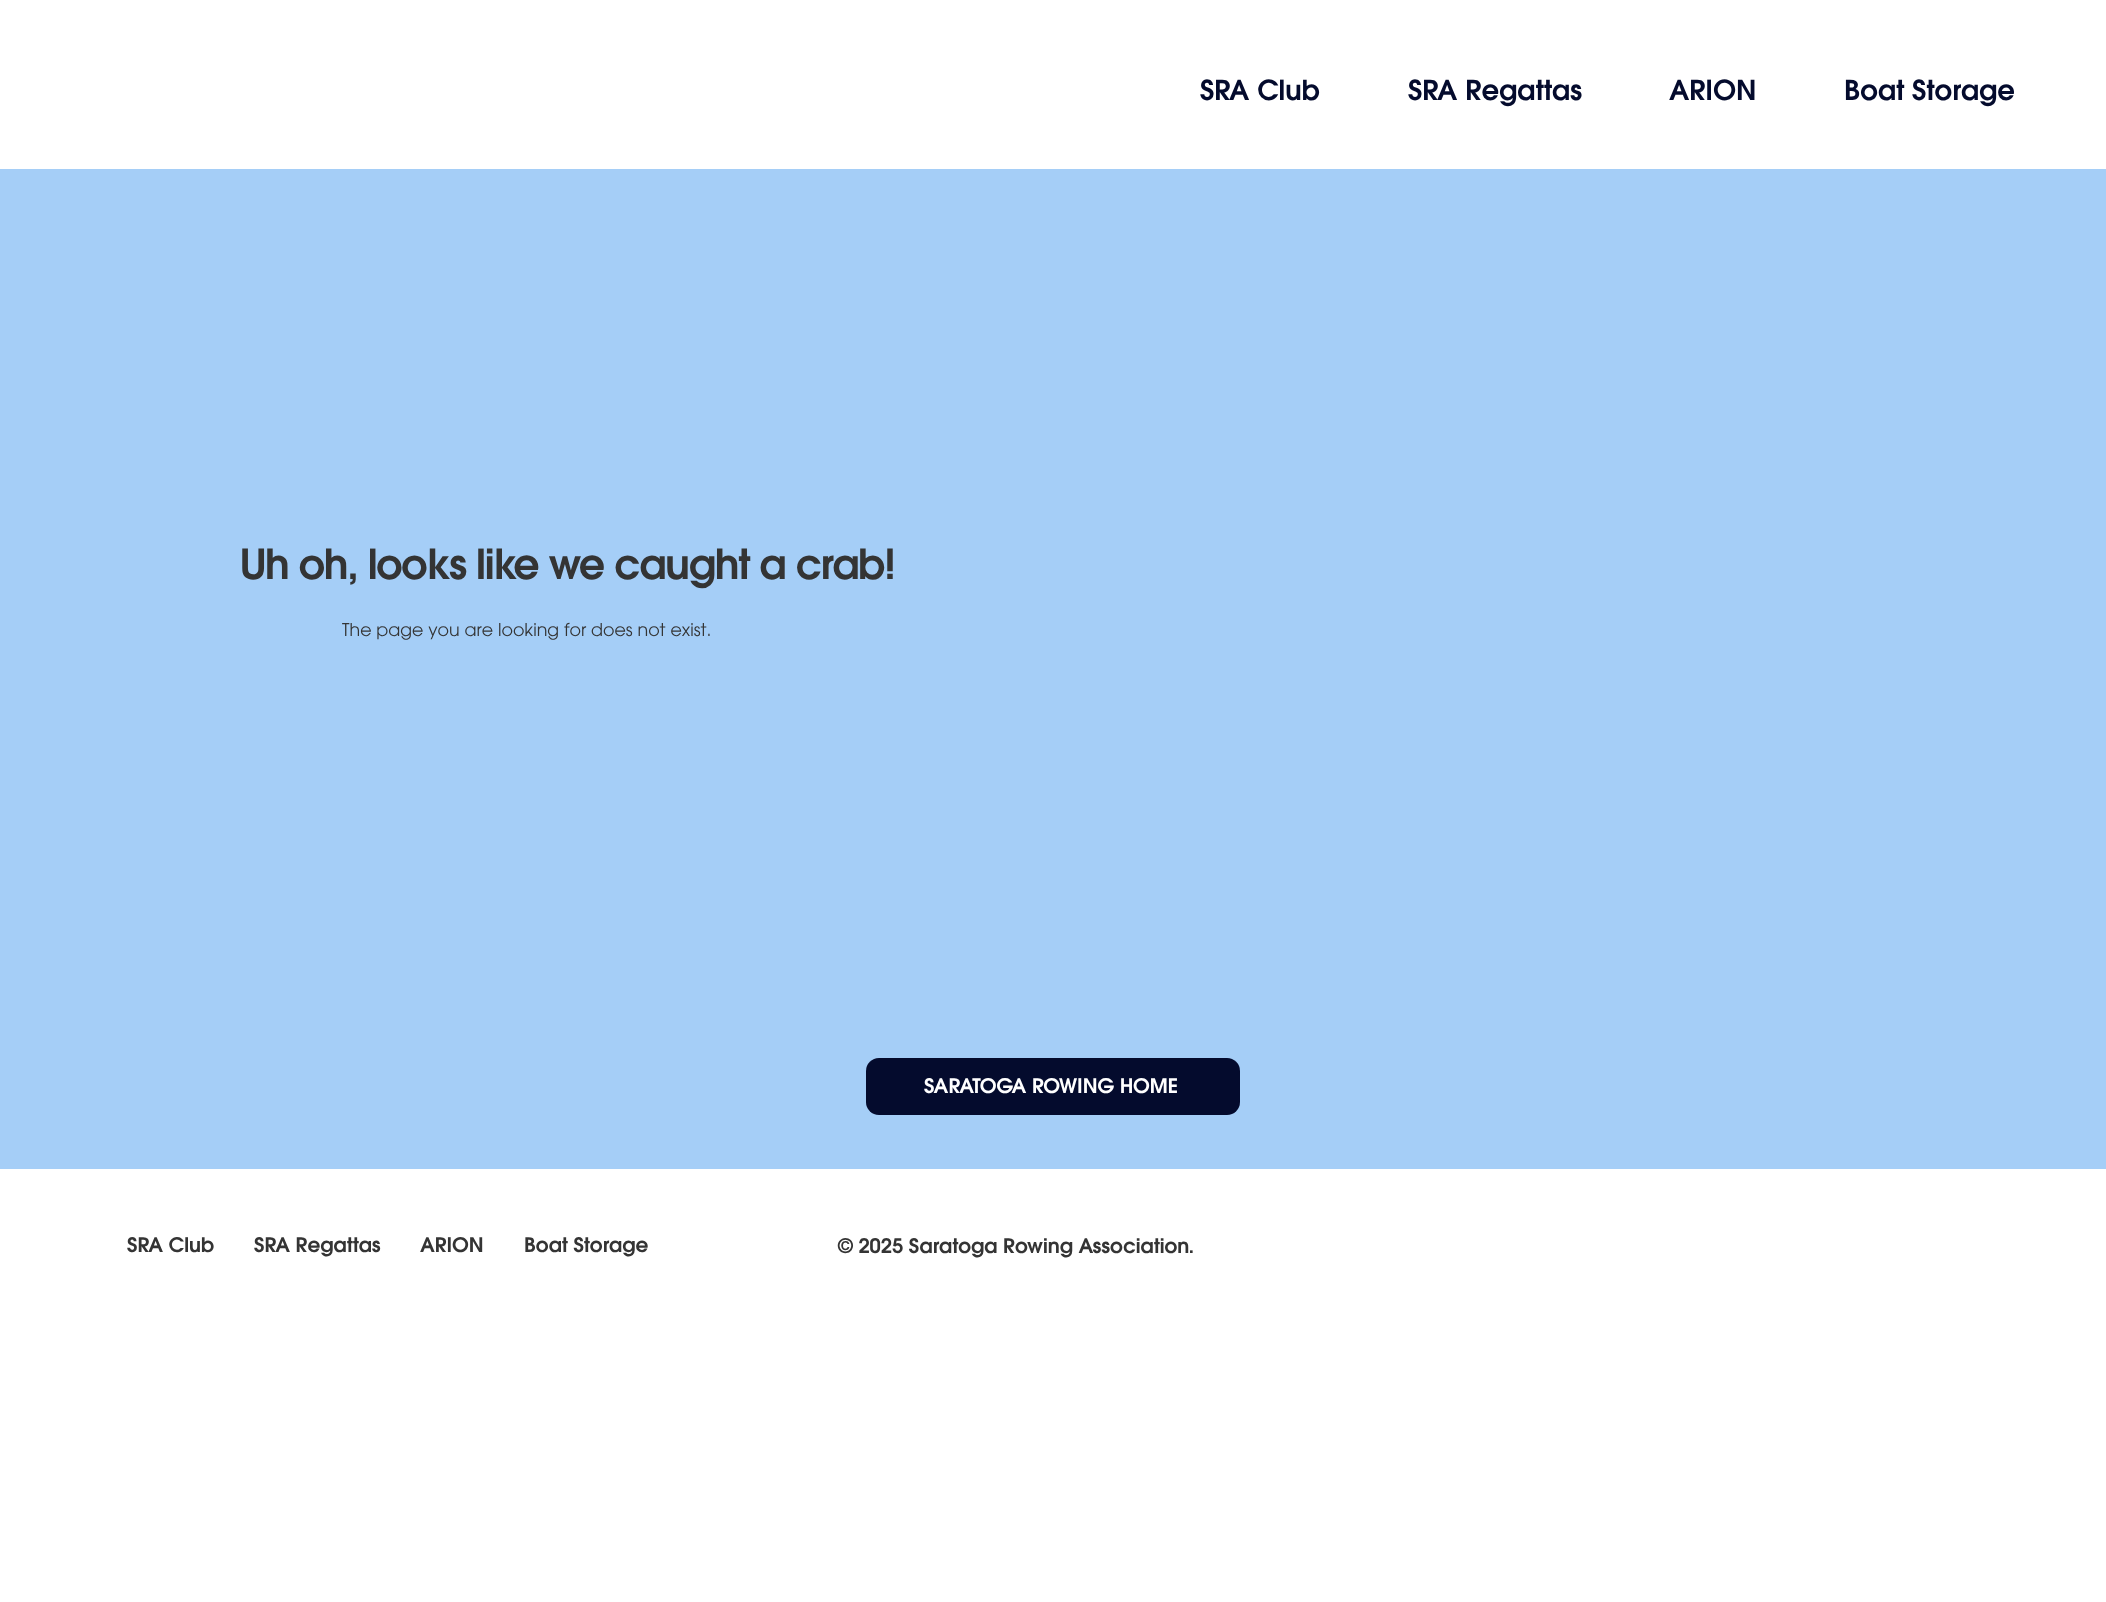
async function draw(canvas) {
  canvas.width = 2106
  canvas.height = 1602
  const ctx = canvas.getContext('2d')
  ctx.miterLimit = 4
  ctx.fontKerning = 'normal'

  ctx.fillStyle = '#fff'
  ctx.fillRect(0, 0, 2106, 1602)
  ctx.font = 'bold 27.5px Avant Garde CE'
  ctx.fillStyle = '#040b2d'
  ctx.fillText('SRA Club', 1200, 100)
  ctx.fillText('SRA Regattas', 1408, 100)
  ctx.fillText('ARION', 1669, 100)
  ctx.fillText('Boat Storage', 1844, 100)
  ctx.fillStyle = '#a5cef7'
  ctx.fillRect(0, 169, 2106, 1000)
  ctx.letterSpacing = '-1.25px'
  ctx.font = 'bold 41.1px Avant Garde CE'
  ctx.fillStyle = '#343434'
  ctx.fillText('Uh oh, looks like we caught a crab!', 240, 579)
  ctx.letterSpacing = '0px'
  ctx.font = '17.5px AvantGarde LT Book'
  ctx.fillText('The page you are looking for does not exist.', 342, 636)
  ctx.fillStyle = '#040b2d'
  ctx.beginPath()
  ctx.roundRect(866, 1058, 374, 57, 13)
  ctx.fill()
  ctx.font = 'bold 20px Avant Garde CE'
  ctx.fillStyle = '#fff'
  ctx.fillText('SARATOGA ROWING HOME', 924, 1093)
  ctx.fillStyle = '#343434'
  ctx.fillText('SRA Club', 127, 1252)
  ctx.fillText('SRA Regattas', 254, 1252)
  ctx.fillText('ARION', 420, 1252)
  ctx.fillText('Boat Storage', 524, 1252)
  ctx.fillText('© 2025 Saratoga Rowing Association.', 838, 1253)
}

draw(document.querySelector('canvas'))
